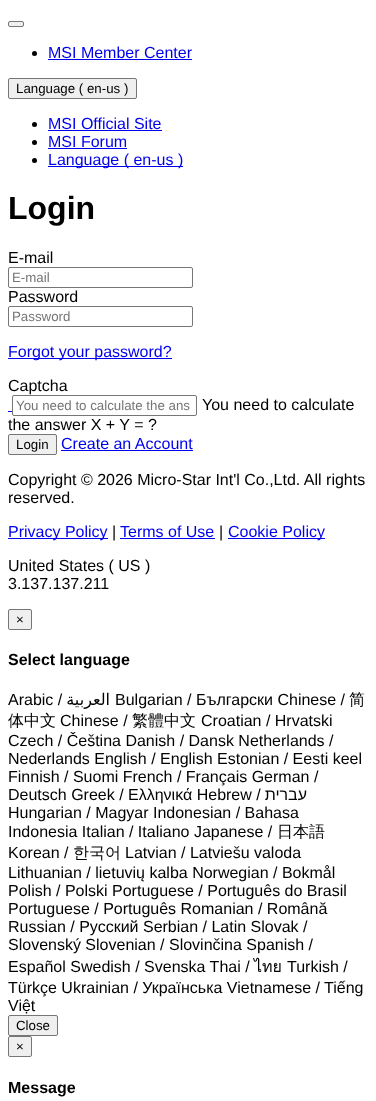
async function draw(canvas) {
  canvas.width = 376
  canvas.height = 1101
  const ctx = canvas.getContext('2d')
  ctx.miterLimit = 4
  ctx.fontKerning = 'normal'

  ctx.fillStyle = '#fff'
  ctx.fillRect(0, 0, 376, 1101)
  ctx.fillStyle = '#efefef'
  ctx.beginPath()
  ctx.roundRect(8.5, 21.5, 15, 5, 1.5)
  ctx.fill()
  ctx.strokeStyle = '#767676'
  ctx.stroke()
  ctx.fillStyle = '#000'
  ctx.beginPath()
  ctx.arc(34.5, 53.5, 2.5, 0, 2 * Math.PI)
  ctx.fill()
  ctx.font = '16px Liberation Sans'
  ctx.fillStyle = '#00e'
  ctx.fillText('MSI Member Center', 48, 58)
  ctx.fillRect(48, 59, 144, 1)
  ctx.fillStyle = '#efefef'
  ctx.beginPath()
  ctx.roundRect(8.5, 78.5, 128, 20, 1.5)
  ctx.fill()
  ctx.stroke()
  ctx.font = '13.3px Liberation Sans'
  ctx.fillStyle = '#000'
  ctx.fillText('Language ( en-us )', 16, 93)
  ctx.beginPath()
  ctx.arc(34.5, 124.5, 2.5, 0, 2 * Math.PI)
  ctx.fill()
  ctx.font = '16px Liberation Sans'
  ctx.fillStyle = '#00e'
  ctx.fillText('MSI Official Site', 48, 129)
  ctx.fillRect(48, 130, 114, 1)
  ctx.fillStyle = '#000'
  ctx.beginPath()
  ctx.arc(34.5, 142.5, 2.5, 0, 2 * Math.PI)
  ctx.fill()
  ctx.fillStyle = '#00e'
  ctx.fillText('MSI Forum', 48, 147)
  ctx.fillRect(48, 148, 79, 1)
  ctx.fillStyle = '#000'
  ctx.beginPath()
  ctx.arc(34.5, 160.5, 2.5, 0, 2 * Math.PI)
  ctx.fill()
  ctx.fillStyle = '#00e'
  ctx.fillRect(48, 166, 135, 1)
  ctx.fillText('Language ( en-us )', 48, 165)
  ctx.font = 'bold 32px Liberation Sans'
  ctx.fillStyle = '#000'
  ctx.fillText('Login', 8, 219)
  ctx.font = '16px Liberation Sans'
  ctx.fillText('E-mail', 8, 263)
  ctx.beginPath()
  ctx.roundRect(8.5, 267.5, 184, 20, 1.5)
  ctx.stroke()
  ctx.font = '13.3px Liberation Sans'
  ctx.fillStyle = '#757575'
  ctx.fillText('E-mail', 12, 282)
  ctx.font = '16px Liberation Sans'
  ctx.fillStyle = '#000'
  ctx.fillText('Password', 8, 302)
  ctx.beginPath()
  ctx.roundRect(8.5, 306.5, 184, 20, 1.5)
  ctx.stroke()
  ctx.font = '13.3px Liberation Sans'
  ctx.fillStyle = '#757575'
  ctx.fillText('Password', 12, 321)
  ctx.fillStyle = '#00e'
  ctx.fillRect(8, 358, 164, 1)
  ctx.font = '16px Liberation Sans'
  ctx.fillText('Forgot your password?', 8, 357)
  ctx.fillStyle = '#000'
  ctx.fillText('Captcha', 8, 391)
  ctx.beginPath()
  ctx.roundRect(12.5, 395.5, 184, 20, 1.5)
  ctx.stroke()
  ctx.font = '13.3px Liberation Sans'
  ctx.fillStyle = '#757575'
  ctx.fillText('You need to calculate the ans', 16, 410)
  ctx.font = '16px Liberation Sans'
  ctx.fillStyle = '#000'
  ctx.fillText('You need to calculate', 202, 410)
  ctx.fillStyle = '#00e'
  ctx.fillRect(8, 411, 4, 1)
  ctx.fillStyle = '#000'
  ctx.fillText('the answer X + Y = ?', 8, 430)
  ctx.fillStyle = '#efefef'
  ctx.beginPath()
  ctx.roundRect(8.5, 434.5, 48, 20, 1.5)
  ctx.fill()
  ctx.stroke()
  ctx.font = '13.3px Liberation Sans'
  ctx.fillStyle = '#000'
  ctx.fillText('Login', 16, 449)
  ctx.font = '16px Liberation Sans'
  ctx.fillStyle = '#00e'
  ctx.fillText('Create an Account', 61, 449)
  ctx.fillRect(61, 450, 132, 1)
  ctx.fillStyle = '#000'
  ctx.fillText('Copyright © 2026 Micro-Star Int\'l Co.,Ltd. All rights', 8, 485)
  ctx.fillText('reserved.', 8, 503)
  ctx.fillStyle = '#00e'
  ctx.fillRect(8, 538, 100, 1)
  ctx.fillText('Privacy Policy', 8, 537)
  ctx.fillStyle = '#000'
  ctx.fillText('|', 112, 537)
  ctx.fillStyle = '#00e'
  ctx.fillText('Terms of Use', 120, 537)
  ctx.fillRect(120, 538, 95, 1)
  ctx.fillStyle = '#000'
  ctx.fillText('|', 219, 537)
  ctx.fillStyle = '#00e'
  ctx.fillRect(228, 538, 97, 1)
  ctx.fillText('Cookie Policy', 228, 537)
  ctx.fillStyle = '#000'
  ctx.fillText('United States ( US )', 8, 571)
  ctx.fillText('3.137.137.211', 8, 589)
  ctx.fillStyle = '#efefef'
  ctx.beginPath()
  ctx.roundRect(8.5, 609.5, 23, 20, 1.5)
  ctx.fill()
  ctx.stroke()
  ctx.font = '13.3px Liberation Sans'
  ctx.fillStyle = '#000'
  ctx.fillText('×', 16, 624)
  ctx.font = 'bold 16px Liberation Sans'
  ctx.fillText('Select language', 8, 665)
  ctx.font = '16px Liberation Sans'
  ctx.fillText('Arabic /', 8, 705)
  ctx.direction = 'rtl'
  ctx.font = '16px DejaVu Sans'
  ctx.fillText('العربية', 110, 705)
  ctx.direction = 'ltr'
  ctx.font = '16px Liberation Sans'
  ctx.fillText('Bulgarian / Български Chinese /', 115, 705)
  ctx.font = '500 16px WenQuanYi Zen Hei'
  ctx.fillText('简', 349, 705)
  ctx.fillText('体中文', 8, 726)
  ctx.font = '16px Liberation Sans'
  ctx.fillText('Chinese /', 60, 726)
  ctx.font = '500 16px WenQuanYi Zen Hei'
  ctx.fillText('繁體中文', 132, 726)
  ctx.font = '16px Liberation Sans'
  ctx.fillText('Croatian / Hrvatski', 201, 726)
  ctx.fillText('Czech / Čeština Danish / Dansk Netherlands /', 8, 746)
  ctx.fillText('Nederlands English / English Estonian / Eesti keel', 8, 764)
  ctx.fillText('Finnish / Suomi French / Français German /', 8, 782)
  ctx.fillText('Deutsch Greek / Ελληνικά Hebrew /', 8, 800)
  ctx.direction = 'rtl'
  ctx.fillText('עברית', 307, 800)
  ctx.direction = 'ltr'
  ctx.fillText('Hungarian / Magyar Indonesian / Bahasa', 8, 818)
  ctx.fillText('Indonesia Italian / Italiano Japanese /', 8, 837)
  ctx.font = '500 16px WenQuanYi Zen Hei'
  ctx.fillText('日本語', 277, 837)
  ctx.font = '16px Liberation Sans'
  ctx.fillText('Korean /', 8, 858)
  ctx.font = '500 16px WenQuanYi Zen Hei'
  ctx.fillText('한국어', 73, 858)
  ctx.font = '16px Liberation Sans'
  ctx.fillText('Latvian / Latviešu valoda', 125, 858)
  ctx.fillText('Lithuanian / lietuvių kalba Norwegian / Bokmål', 8, 878)
  ctx.fillText('Polish / Polski Portuguese / Português do Brasil', 8, 896)
  ctx.fillText('Portuguese / Português Romanian / Română', 8, 914)
  ctx.fillText('Russian / Русский Serbian / Latin Slovak /', 8, 932)
  ctx.fillText('Slovenský Slovenian / Slovinčina Spanish /', 8, 950)
  ctx.fillText('Español Swedish / Svenska Thai /', 8, 972)
  ctx.font = '16px Loma'
  ctx.fillText('ไทย', 254, 972)
  ctx.font = '16px Liberation Sans'
  ctx.fillText('Turkish /', 287, 972)
  ctx.fillText('Türkçe Ukrainian / Українська Vietnamese / Tiếng', 8, 993)
  ctx.fillText('Việt', 8, 1011)
  ctx.fillStyle = '#efefef'
  ctx.beginPath()
  ctx.roundRect(8.5, 1015.5, 49, 20, 1.5)
  ctx.fill()
  ctx.stroke()
  ctx.font = '13.3px Liberation Sans'
  ctx.fillStyle = '#000'
  ctx.fillText('Close', 16, 1030)
  ctx.fillStyle = '#efefef'
  ctx.beginPath()
  ctx.roundRect(8.5, 1036.5, 23, 20, 1.5)
  ctx.fill()
  ctx.stroke()
  ctx.fillStyle = '#000'
  ctx.fillText('×', 16, 1051)
  ctx.font = 'bold 16px Liberation Sans'
  ctx.fillText('Message', 8, 1093)
}

draw(document.querySelector('canvas'))
